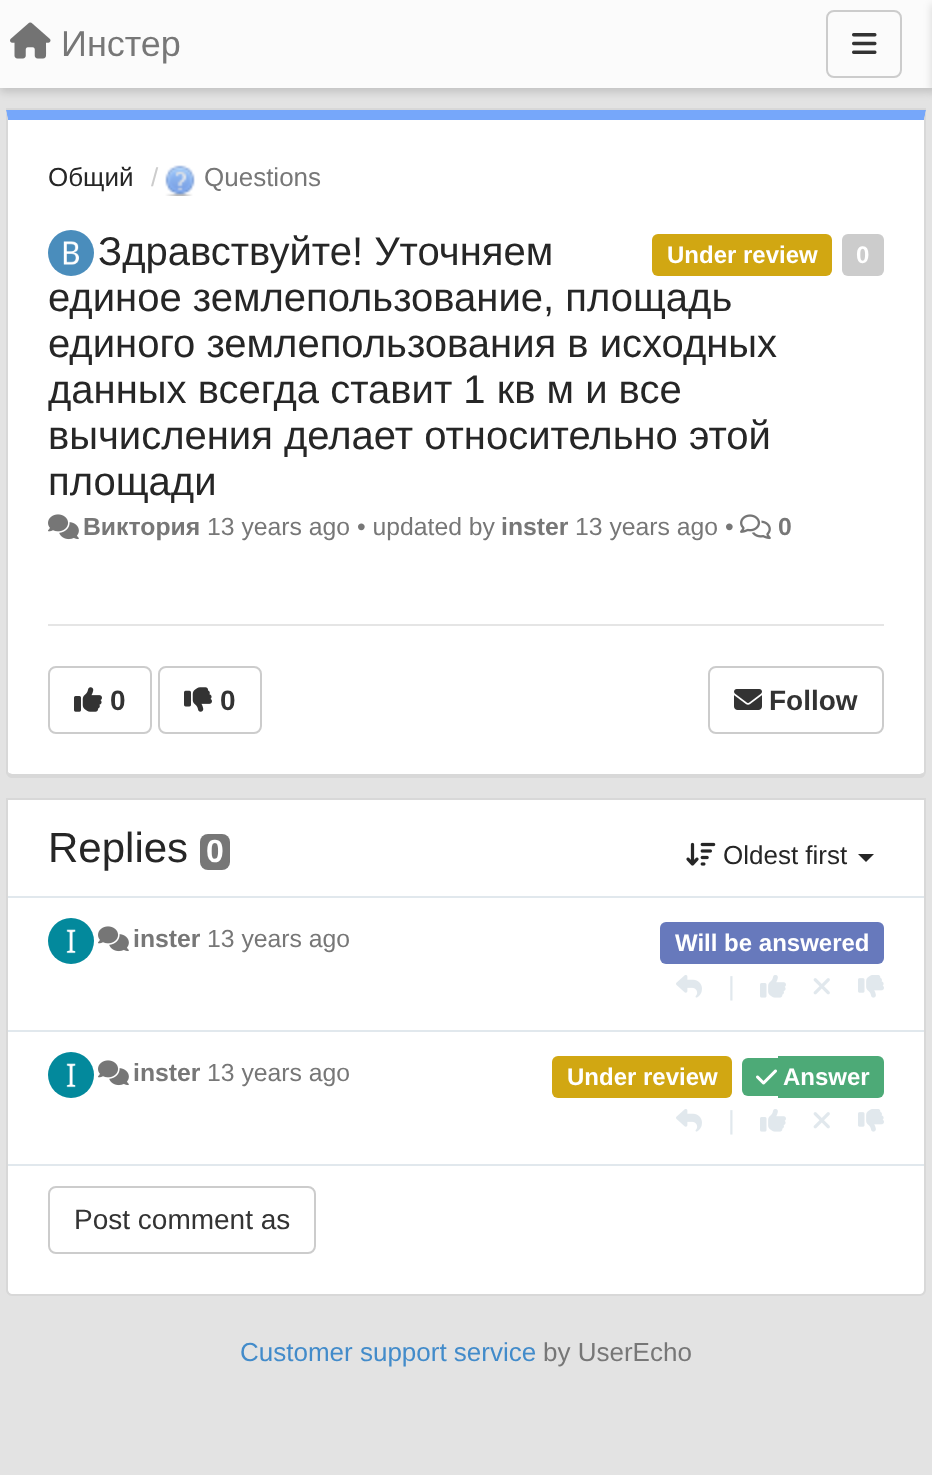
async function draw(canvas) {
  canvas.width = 932
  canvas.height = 1475
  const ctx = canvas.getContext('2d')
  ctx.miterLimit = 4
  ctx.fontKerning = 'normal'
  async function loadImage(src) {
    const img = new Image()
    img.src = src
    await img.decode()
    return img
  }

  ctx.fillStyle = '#e3e3e3'
  ctx.fillRect(0, 0, 932, 1475)
  ctx.fillStyle = '#00000026'
  ctx.filter = 'blur(4px)'
  ctx.beginPath()
  ctx.rect(0, 4, 932, 88)
  ctx.fill()
  ctx.filter = 'none'
  ctx.fillStyle = '#fbfbfb'
  ctx.fillRect(0, 0, 932, 88)
  ctx.drawImage(await loadImage('image0.png'), 10, 22, 41, 37)
  ctx.font = '36px Liberation Sans'
  ctx.fillStyle = '#777'
  ctx.fillText('Инстер', 61, 56)
  ctx.beginPath()
  ctx.roundRect(827, 11, 74, 66, 7)
  ctx.strokeStyle = '#ccc'
  ctx.lineWidth = 2
  ctx.stroke()
  ctx.drawImage(await loadImage('image1.png'), 852, 33, 25, 21)
  ctx.fillStyle = '#00000026'
  ctx.filter = 'blur(4px)'
  ctx.beginPath()
  ctx.rect(932, 4, 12, 88)
  ctx.fill()
  ctx.filter = 'none'
  ctx.fillStyle = '#d8d8d8'
  ctx.fillRect(6, 108, 920, 2)
  ctx.fillStyle = '#fff'
  ctx.beginPath()
  ctx.moveTo(8, 120)
  ctx.lineTo(924, 120)
  ctx.lineTo(924, 772)
  ctx.bezierCurveTo(924, 773, 922, 774, 920, 774)
  ctx.lineTo(12, 774)
  ctx.bezierCurveTo(10, 774, 8, 773, 8, 772)
  ctx.closePath()
  ctx.fill()
  ctx.fillStyle = '#76a7fa'
  ctx.beginPath()
  ctx.moveTo(6, 110)
  ctx.lineTo(8, 120)
  ctx.lineTo(924, 120)
  ctx.lineTo(926, 110)
  ctx.closePath()
  ctx.fill()
  ctx.fillStyle = '#d8d8d8'
  ctx.beginPath()
  ctx.moveTo(926, 110)
  ctx.lineTo(924, 120)
  ctx.lineTo(924, 772)
  ctx.lineTo(923, 773)
  ctx.lineTo(925, 775)
  ctx.lineTo(926, 772)
  ctx.closePath()
  ctx.fill()
  ctx.beginPath()
  ctx.moveTo(12, 778)
  ctx.lineTo(920, 778)
  ctx.bezierCurveTo(922, 778, 924, 777, 925, 775)
  ctx.lineTo(923, 773)
  ctx.lineTo(920, 774)
  ctx.lineTo(12, 774)
  ctx.lineTo(9, 773)
  ctx.lineTo(7, 775)
  ctx.bezierCurveTo(8, 777, 10, 778, 12, 778)
  ctx.closePath()
  ctx.fill()
  ctx.beginPath()
  ctx.moveTo(8, 120)
  ctx.lineTo(6, 110)
  ctx.lineTo(6, 772)
  ctx.bezierCurveTo(6, 773, 6, 774, 7, 775)
  ctx.lineTo(9, 773)
  ctx.lineTo(8, 772)
  ctx.closePath()
  ctx.fill()
  ctx.font = '26px Liberation Sans'
  ctx.fillStyle = '#262626'
  ctx.fillText('Общий', 48, 186)
  ctx.fillStyle = '#ccc'
  ctx.fillText('/', 151, 186)
  ctx.drawImage(await loadImage('image2.png'), 165, 165, 30, 31)
  ctx.fillStyle = '#777'
  ctx.fillText('Questions', 204, 186)
  ctx.fillStyle = '#4a8dbc'
  ctx.beginPath()
  ctx.arc(71, 253, 23, 0, 2 * Math.PI)
  ctx.fill()
  ctx.drawImage(await loadImage('image3.png'), 63, 241, 16, 24)
  ctx.font = '40px Liberation Sans'
  ctx.fillStyle = '#262626'
  ctx.fillText('Здравствуйте! Уточняем', 98, 265)
  ctx.fillText('единое землепользование, площадь', 48, 311)
  ctx.fillText('единого землепользования в исходных', 48, 357)
  ctx.fillText('данных всегда ставит 1 кв м и все', 48, 403)
  ctx.fillText('вычисления делает относительно этой', 48, 449)
  ctx.fillText('площади', 48, 495)
  ctx.fillStyle = '#d1a712'
  ctx.beginPath()
  ctx.roundRect(652, 234, 180, 42, 6)
  ctx.fill()
  ctx.font = 'bold 24px Liberation Sans'
  ctx.fillStyle = '#fff'
  ctx.fillText('Under review', 667, 263)
  ctx.fillStyle = '#ccc'
  ctx.beginPath()
  ctx.roundRect(842, 234, 42, 42, 6)
  ctx.fill()
  ctx.fillStyle = '#fff'
  ctx.fillText('0', 856, 263)
  ctx.drawImage(await loadImage('image4.png'), 48, 514, 31, 26)
  ctx.font = 'bold 24.75px Liberation Sans'
  ctx.fillStyle = '#777'
  ctx.fillText('Виктория', 83, 535)
  ctx.font = '24.75px Liberation Sans'
  ctx.fillText('13 years ago • updated by', 207, 535)
  ctx.font = 'bold 24.75px Liberation Sans'
  ctx.fillText('inster', 501, 535)
  ctx.font = '24.75px Liberation Sans'
  ctx.fillText('13 years ago •', 575, 535)
  ctx.drawImage(await loadImage('image5.png'), 740, 514, 31, 26)
  ctx.font = 'bold 24.75px Liberation Sans'
  ctx.fillText('0', 778, 535)
  ctx.fillStyle = '#e5e5e5'
  ctx.fillRect(48, 624, 836, 2)
  ctx.beginPath()
  ctx.roundRect(49, 667, 102, 66, 7)
  ctx.stroke()
  ctx.drawImage(await loadImage('image6.png'), 74, 687, 28, 25)
  ctx.font = 'bold 28px Liberation Sans'
  ctx.fillStyle = '#333'
  ctx.fillText('0', 110, 710)
  ctx.beginPath()
  ctx.roundRect(159, 667, 102, 66, 7)
  ctx.stroke()
  ctx.drawImage(await loadImage('image7.png'), 184, 687, 28, 25)
  ctx.fillText('0', 220, 710)
  ctx.beginPath()
  ctx.roundRect(709, 667, 174, 66, 7)
  ctx.stroke()
  ctx.drawImage(await loadImage('image8.png'), 734, 689, 28, 21)
  ctx.fillText('Follow', 769, 710)
  ctx.fillStyle = '#d8d8d8'
  ctx.fillRect(6, 798, 920, 2)
  ctx.fillStyle = '#fff'
  ctx.beginPath()
  ctx.roundRect(8, 800, 916, 494, [0, 0, 4, 4])
  ctx.fill()
  ctx.fillStyle = '#d8d8d8'
  ctx.beginPath()
  ctx.moveTo(6, 800)
  ctx.lineTo(926, 800)
  ctx.lineTo(926, 1290)
  ctx.bezierCurveTo(926, 1293, 923, 1296, 920, 1296)
  ctx.lineTo(12, 1296)
  ctx.bezierCurveTo(9, 1296, 6, 1293, 6, 1290)
  ctx.closePath()
  ctx.moveTo(8, 800)
  ctx.lineTo(924, 800)
  ctx.lineTo(924, 1290)
  ctx.bezierCurveTo(924, 1292, 922, 1294, 920, 1294)
  ctx.lineTo(12, 1294)
  ctx.bezierCurveTo(10, 1294, 8, 1292, 8, 1290)
  ctx.closePath()
  ctx.fill('evenodd')
  ctx.font = '42px Liberation Sans'
  ctx.fillStyle = '#262626'
  ctx.fillText('Replies', 48, 862)
  ctx.fillStyle = '#777'
  ctx.beginPath()
  ctx.roundRect(200, 834, 30, 36, 8)
  ctx.fill()
  ctx.font = 'bold 32px Liberation Sans'
  ctx.fillStyle = '#fff'
  ctx.fillText('0', 206, 862)
  ctx.drawImage(await loadImage('image9.png'), 686, 842, 30, 24)
  ctx.font = '26px Liberation Sans'
  ctx.fillStyle = '#262626'
  ctx.fillText('Oldest first', 723, 864)
  ctx.beginPath()
  ctx.moveTo(858, 854)
  ctx.lineTo(874, 854)
  ctx.lineTo(866, 862)
  ctx.closePath()
  ctx.fill()
  ctx.fillStyle = '#e1e8ed'
  ctx.fillRect(8, 896, 916, 2)
  ctx.fillRect(8, 1030, 916, 2)
  ctx.fillStyle = '#03899c'
  ctx.beginPath()
  ctx.arc(71, 941, 23, 0, 2 * Math.PI)
  ctx.fill()
  ctx.drawImage(await loadImage('image10.png'), 66, 929, 10, 25)
  ctx.drawImage(await loadImage('image4.png'), 98, 926, 31, 26)
  ctx.font = 'bold 24.75px Liberation Sans'
  ctx.fillStyle = '#777'
  ctx.fillText('inster', 133, 947)
  ctx.font = '24.75px Liberation Sans'
  ctx.fillText('13 years ago', 207, 947)
  ctx.fillStyle = '#6779bc'
  ctx.beginPath()
  ctx.roundRect(660, 922, 224, 42, 6)
  ctx.fill()
  ctx.font = 'bold 24px Liberation Sans'
  ctx.fillStyle = '#fff'
  ctx.fillText('Will be answered', 675, 951)
  ctx.drawImage(await loadImage('image11.png'), 676, 975, 26, 23)
  ctx.font = '26px Liberation Sans'
  ctx.fillStyle = '#e1e8ed'
  ctx.fillText('|', 728, 995)
  ctx.drawImage(await loadImage('image12.png'), 760, 975, 26, 23)
  ctx.drawImage(await loadImage('image13.png'), 813, 978, 17, 17)
  ctx.drawImage(await loadImage('image14.png'), 858, 975, 26, 23)
  ctx.fillRect(8, 1164, 916, 2)
  ctx.fillStyle = '#03899c'
  ctx.beginPath()
  ctx.arc(71, 1075, 23, 0, 2 * Math.PI)
  ctx.fill()
  ctx.drawImage(await loadImage('image10.png'), 66, 1063, 10, 25)
  ctx.drawImage(await loadImage('image4.png'), 98, 1060, 31, 26)
  ctx.font = 'bold 24.75px Liberation Sans'
  ctx.fillStyle = '#777'
  ctx.fillText('inster', 133, 1081)
  ctx.font = '24.75px Liberation Sans'
  ctx.fillText('13 years ago', 207, 1081)
  ctx.fillStyle = '#d1a712'
  ctx.beginPath()
  ctx.roundRect(552, 1056, 180, 42, 6)
  ctx.fill()
  ctx.font = 'bold 24px Liberation Sans'
  ctx.fillStyle = '#fff'
  ctx.fillText('Under review', 567, 1085)
  ctx.fillStyle = '#4daa77'
  ctx.beginPath()
  ctx.roundRect(742, 1058, 36, 38, [6, 0, 0, 6])
  ctx.fill()
  ctx.beginPath()
  ctx.roundRect(778, 1056, 106, 42, [0, 6, 6, 0])
  ctx.fill()
  ctx.drawImage(await loadImage('image15.png'), 756, 1069, 21, 16)
  ctx.fillStyle = '#fff'
  ctx.fillText('Answer', 783, 1085)
  ctx.drawImage(await loadImage('image11.png'), 676, 1109, 26, 23)
  ctx.font = '26px Liberation Sans'
  ctx.fillStyle = '#e1e8ed'
  ctx.fillText('|', 728, 1129)
  ctx.drawImage(await loadImage('image12.png'), 760, 1109, 26, 23)
  ctx.drawImage(await loadImage('image13.png'), 813, 1112, 17, 17)
  ctx.drawImage(await loadImage('image14.png'), 858, 1109, 26, 23)
  ctx.beginPath()
  ctx.roundRect(49, 1187, 266, 66, 7)
  ctx.stroke()
  ctx.font = '28px Liberation Sans'
  ctx.fillStyle = '#333'
  ctx.fillText('Post comment as', 74, 1229)
  ctx.font = '26px Liberation Sans'
  ctx.fillStyle = '#428bca'
  ctx.fillText('Customer support service', 240, 1361)
  ctx.fillStyle = '#777'
  ctx.fillText('by UserEcho', 543, 1361)
}

draw(document.querySelector('canvas'))
